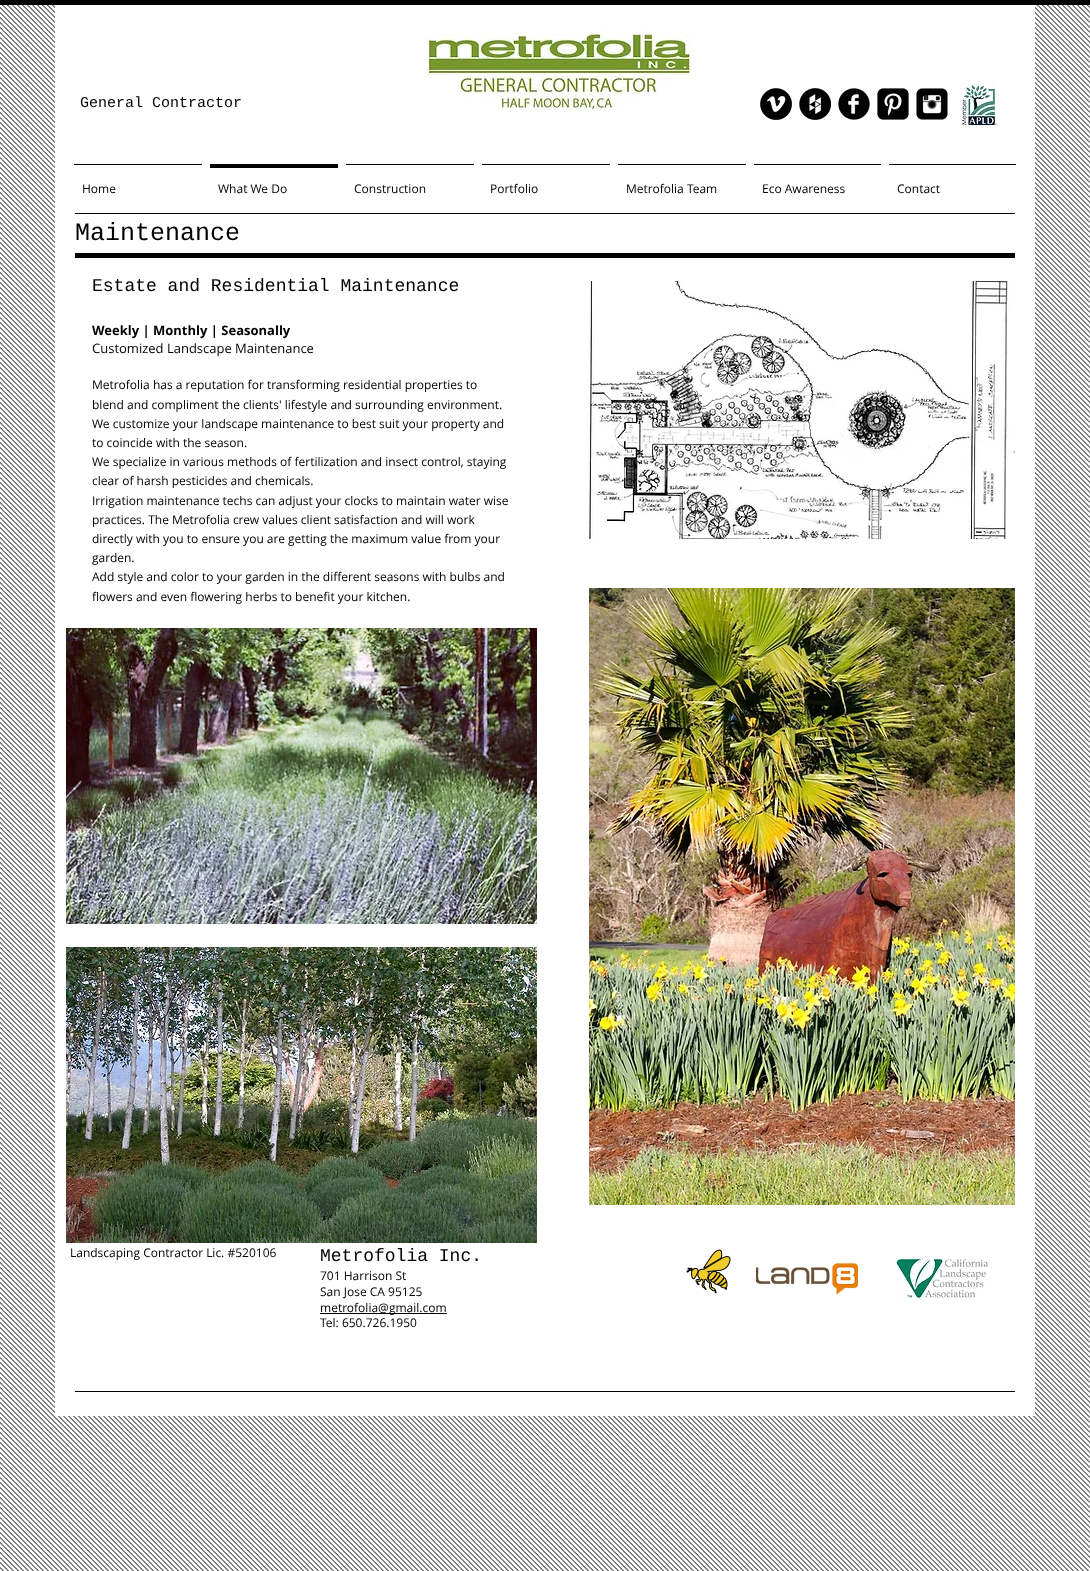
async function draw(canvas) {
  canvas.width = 1090
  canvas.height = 1571
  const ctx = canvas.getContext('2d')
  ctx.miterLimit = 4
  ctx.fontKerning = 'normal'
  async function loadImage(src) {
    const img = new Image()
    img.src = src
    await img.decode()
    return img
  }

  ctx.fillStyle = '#fff'
  ctx.fillRect(0, 0, 1090, 1571)
  ctx.drawImage(await loadImage('image0.png'), 0, 5, 1090, 1566)
  ctx.fillStyle = '#000'
  ctx.fillRect(0, 0, 1090, 5)
  ctx.fillStyle = '#fff'
  ctx.fillRect(55, 5, 980, 1411)
  ctx.font = '15px Liberation Mono'
  ctx.fillStyle = '#000'
  ctx.fillText('General Contractor', 80, 107)
  ctx.drawImage(await loadImage('image1.png'), 427, 31, 265, 80)
  ctx.drawImage(await loadImage('image2.png'), 760, 88, 32, 32)
  ctx.drawImage(await loadImage('image3.png'), 799, 88, 32, 32)
  ctx.drawImage(await loadImage('image4.png'), 838, 88, 32, 32)
  ctx.drawImage(await loadImage('image5.png'), 877, 88, 32, 32)
  ctx.drawImage(await loadImage('image6.png'), 916, 88, 32, 32)
  ctx.drawImage(await loadImage('image7.png'), 960, 83, 38, 44)
  ctx.fillRect(74, 164, 128, 1)
  ctx.font = '12px Open Sans'
  ctx.fillText('Home', 82, 193)
  ctx.fillRect(210, 164, 128, 4)
  ctx.fillText('What We Do', 218, 193)
  ctx.fillRect(346, 164, 128, 1)
  ctx.fillText('Construction', 354, 193)
  ctx.fillRect(482, 164, 128, 1)
  ctx.fillText('Portfolio', 490, 193)
  ctx.fillRect(618, 164, 128, 1)
  ctx.fillText('Metrofolia Team', 626, 193)
  ctx.fillRect(754, 164, 127, 1)
  ctx.fillText('Eco Awareness', 762, 193)
  ctx.fillRect(889, 164, 127, 1)
  ctx.fillText('Contact', 897, 193)
  ctx.fillRect(75, 213, 940, 1)
  ctx.font = '25px Liberation Mono'
  ctx.fillText('Maintenance', 75, 240)
  ctx.fillRect(75, 253, 940, 5)
  ctx.font = '18px Liberation Mono'
  ctx.fillText('Estate and Residential Maintenance', 92, 291)
  ctx.font = 'bold 13px Open Sans'
  ctx.fillText('Weekly | Monthly | Seasonally', 92, 335)
  ctx.font = '13px Open Sans'
  ctx.fillText('Customized Landscape Maintenance', 92, 353)
  ctx.font = '12px Open Sans'
  ctx.fillText('Metrofolia has a reputation for transforming residential properties to', 92, 389)
  ctx.fillText('blend and compliment the clients\' lifestyle and surrounding environment.', 92, 409)
  ctx.fillText('We customize your landscape maintenance to best suit your property and', 92, 428)
  ctx.fillText('to coincide with the season.', 92, 447)
  ctx.fillText('We specialize in various methods of fertilization and insect control, staying', 92, 466)
  ctx.fillText('clear of harsh pesticides and chemicals.', 92, 485)
  ctx.fillText('Irrigation maintenance techs can adjust your clocks to maintain water wise', 92, 505)
  ctx.fillText('practices. The Metrofolia crew values client satisfaction and will work', 92, 524)
  ctx.fillText('directly with you to ensure you are getting the maximum value from your', 92, 543)
  ctx.fillText('garden.', 92, 562)
  ctx.fillText('Add style and color to your garden in the different seasons with bulbs and', 92, 581)
  ctx.fillText('flowers and even flowering herbs to benefit your kitchen.', 92, 601)
  ctx.drawImage(await loadImage('image8.png'), 587, 281, 428, 258)
  ctx.drawImage(await loadImage('image9.png'), 66, 628, 471, 296)
  ctx.font = '18px Liberation Mono'
  ctx.fillStyle = '#959ba5'
  ctx.fillText('lavender field', 76, 891)
  ctx.font = '12px Open Sans'
  ctx.fillText('Lavender field pruned to keep and organic style.', 76, 910)
  ctx.font = '12px Liberation Sans'
  ctx.fillStyle = '#71786a'
  ctx.fillText('1/2', 510, 911)
  ctx.drawImage(await loadImage('image10.png'), 589, 588, 426, 617)
  ctx.drawImage(await loadImage('image11.png'), 66, 947, 471, 296)
  ctx.font = '12px Open Sans'
  ctx.fillStyle = '#000'
  ctx.fillText('Landscaping Contractor Lic. #520106', 70, 1257)
  ctx.font = '18px Liberation Mono'
  ctx.fillText('Metrofolia Inc.', 320, 1261)
  ctx.font = '12px Open Sans'
  ctx.fillText('701 Harrison St', 320, 1280)
  ctx.fillText('San Jose CA 95125', 320, 1296)
  ctx.fillRect(320, 1313, 127, 1)
  ctx.fillText('metrofolia@gmail.com', 320, 1312)
  ctx.fillText('Tel: 650.726.1950', 320, 1327)
  ctx.drawImage(await loadImage('image12.png'), 686, 1249, 45, 45)
  ctx.drawImage(await loadImage('image13.png'), 756, 1263, 102, 31)
  ctx.drawImage(await loadImage('image14.png'), 896, 1259, 92, 39)
  ctx.fillRect(75, 1391, 940, 1)
}

draw(document.querySelector('canvas'))
